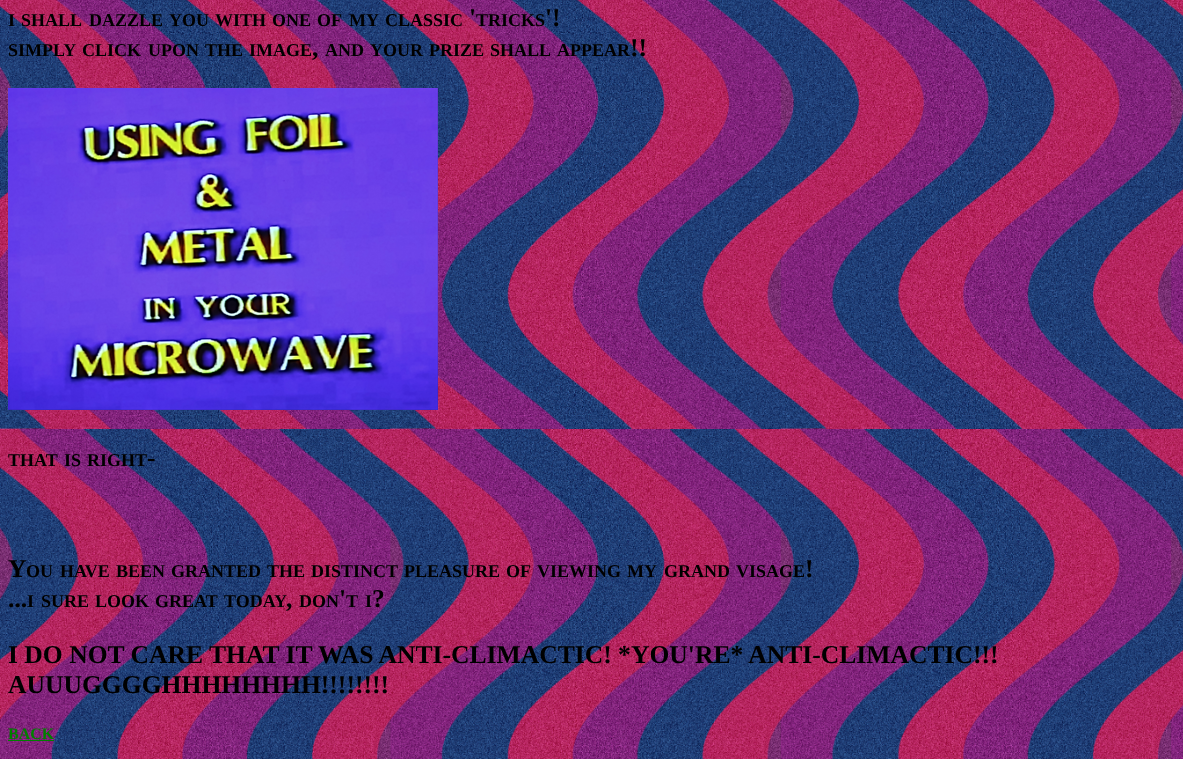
async function draw(canvas) {
  canvas.width = 1183
  canvas.height = 759
  const ctx = canvas.getContext('2d')
  ctx.miterLimit = 4
  ctx.fontKerning = 'normal'
  async function loadImage(src) {
    const img = new Image()
    img.src = src
    await img.decode()
    return img
  }

  ctx.fillStyle = '#fff'
  ctx.fillRect(0, 0, 1183, 759)
  ctx.drawImage(await loadImage('image0.png'), 0, 0, 1183, 759)
  ctx.font = 'bold 18px Liberation Serif'
  ctx.fillStyle = '#000'
  ctx.fillText('I', 8, 26)
  ctx.fillText('SHALL', 21, 26)
  ctx.fillText('DAZZLE', 89, 26)
  ctx.fillText('YOU', 169, 26)
  ctx.fillText('WITH', 215, 26)
  ctx.fillText('ONE', 272, 26)
  ctx.fillText('OF', 317, 26)
  ctx.fillText('MY', 349, 26)
  ctx.fillText('CLASSIC', 385, 26)
  ctx.font = 'bold 25.6px Liberation Serif'
  ctx.fillText('\'', 469, 26)
  ctx.font = 'bold 18px Liberation Serif'
  ctx.fillText('TRICKS', 476, 26)
  ctx.font = 'bold 25.6px Liberation Serif'
  ctx.fillText('\'!', 545, 26)
  ctx.font = 'bold 18px Liberation Serif'
  ctx.fillText('SIMPLY', 8, 56)
  ctx.fillText('CLICK', 82, 56)
  ctx.fillText('UPON', 148, 56)
  ctx.fillText('THE', 205, 56)
  ctx.fillText('IMAGE', 249, 56)
  ctx.font = 'bold 25.6px Liberation Serif'
  ctx.fillText(',', 312, 56)
  ctx.font = 'bold 18px Liberation Serif'
  ctx.fillText('AND', 325, 56)
  ctx.fillText('YOUR', 370, 56)
  ctx.fillText('PRIZE', 429, 56)
  ctx.fillText('SHALL', 490, 56)
  ctx.fillText('APPEAR', 557, 56)
  ctx.font = 'bold 25.6px Liberation Serif'
  ctx.fillText('!!', 630, 56)
  ctx.drawImage(await loadImage('image1.png'), 8, 88, 430, 322)
  ctx.font = 'bold 18px Liberation Serif'
  ctx.fillText('THAT', 8, 466)
  ctx.fillText('IS', 64, 466)
  ctx.fillText('RIGHT', 87, 466)
  ctx.font = 'bold 25.6px Liberation Serif'
  ctx.fillText('-', 147, 466)
  ctx.fillText('Y', 8, 577)
  ctx.font = 'bold 18px Liberation Serif'
  ctx.fillText('OU', 26, 577)
  ctx.fillText('HAVE', 60, 577)
  ctx.fillText('BEEN', 116, 577)
  ctx.fillText('GRANTED', 171, 577)
  ctx.fillText('THE', 267, 577)
  ctx.fillText('DISTINCT', 311, 577)
  ctx.fillText('PLEASURE', 404, 577)
  ctx.fillText('OF', 506, 577)
  ctx.fillText('VIEWING', 537, 577)
  ctx.fillText('MY', 627, 577)
  ctx.fillText('GRAND', 664, 577)
  ctx.fillText('VISAGE', 736, 577)
  ctx.font = 'bold 25.6px Liberation Serif'
  ctx.fillText('!', 805, 577)
  ctx.fillText('...', 8, 607)
  ctx.font = 'bold 18px Liberation Serif'
  ctx.fillText('I', 27, 607)
  ctx.fillText('SURE', 41, 607)
  ctx.fillText('LOOK', 95, 607)
  ctx.fillText('GREAT', 155, 607)
  ctx.fillText('TODAY', 224, 607)
  ctx.font = 'bold 25.6px Liberation Serif'
  ctx.fillText(',', 286, 607)
  ctx.font = 'bold 18px Liberation Serif'
  ctx.fillText('DON', 299, 607)
  ctx.font = 'bold 25.6px Liberation Serif'
  ctx.fillText('\'', 339, 607)
  ctx.font = 'bold 18px Liberation Serif'
  ctx.fillText('T', 346, 607)
  ctx.fillText('I', 365, 607)
  ctx.font = 'bold 25.6px Liberation Serif'
  ctx.fillText('?', 372, 607)
  ctx.fillText('I DO NOT CARE THAT IT WAS ANTI-CLIMACTIC! *YOU\'RE* ANTI-CLIMACTIC!!!', 8, 663)
  ctx.fillText('AUUUGGGGHHHHHHHH!!!!!!!!', 8, 693)
  ctx.font = 'bold 16px Liberation Serif'
  ctx.fillStyle = '#008000'
  ctx.fillText('BACK', 8, 739)
  ctx.fillRect(8, 740, 46, 1)
}

draw(document.querySelector('canvas'))
